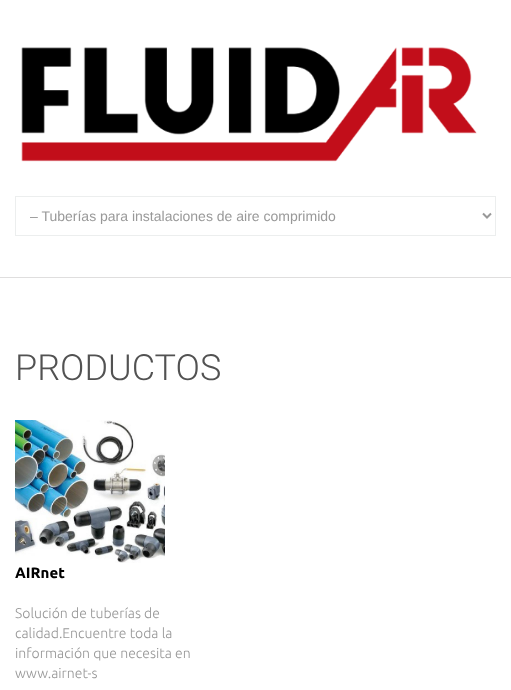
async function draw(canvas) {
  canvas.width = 511
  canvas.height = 690
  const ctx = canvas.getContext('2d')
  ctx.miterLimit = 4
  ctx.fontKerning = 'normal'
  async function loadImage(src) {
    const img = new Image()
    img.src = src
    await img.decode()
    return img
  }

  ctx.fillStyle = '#fff'
  ctx.fillRect(0, 0, 511, 690)
  ctx.fillStyle = '#dfdede'
  ctx.fillRect(0, 277, 511, 1)
  ctx.drawImage(await loadImage('image0.png'), 21, 47, 456, 115)
  ctx.strokeStyle = '#eceeee'
  ctx.strokeRect(15.5, 196.5, 480, 39)
  ctx.beginPath()
  ctx.moveTo(483, 213.5)
  ctx.lineTo(487, 217.5)
  ctx.lineTo(491, 213.5)
  ctx.strokeStyle = '#999'
  ctx.lineWidth = 2
  ctx.stroke()
  ctx.font = '14px Liberation Sans'
  ctx.fillStyle = '#999'
  ctx.fillText('– Tuberías para instalaciones de aire comprimido', 30, 221)
  ctx.font = '300 36px Roboto'
  ctx.fillStyle = '#525252'
  ctx.fillText('PRODUCTOS', 15, 380)
  ctx.drawImage(await loadImage('image1.png'), 15, 420, 150, 143)
  ctx.font = 'bold 15px Ubuntu'
  ctx.fillStyle = '#000'
  ctx.fillText('AIRnet', 15, 578)
  ctx.font = '300 14px Ubuntu'
  ctx.fillStyle = '#999'
  ctx.fillText('Solución de tuberías de', 15, 618)
  ctx.fillText('calidad.Encuentre toda la', 15, 638)
  ctx.fillText('información que necesita en', 15, 658)
  ctx.fillText('www.airnet-s', 15, 678)
}

draw(document.querySelector('canvas'))
